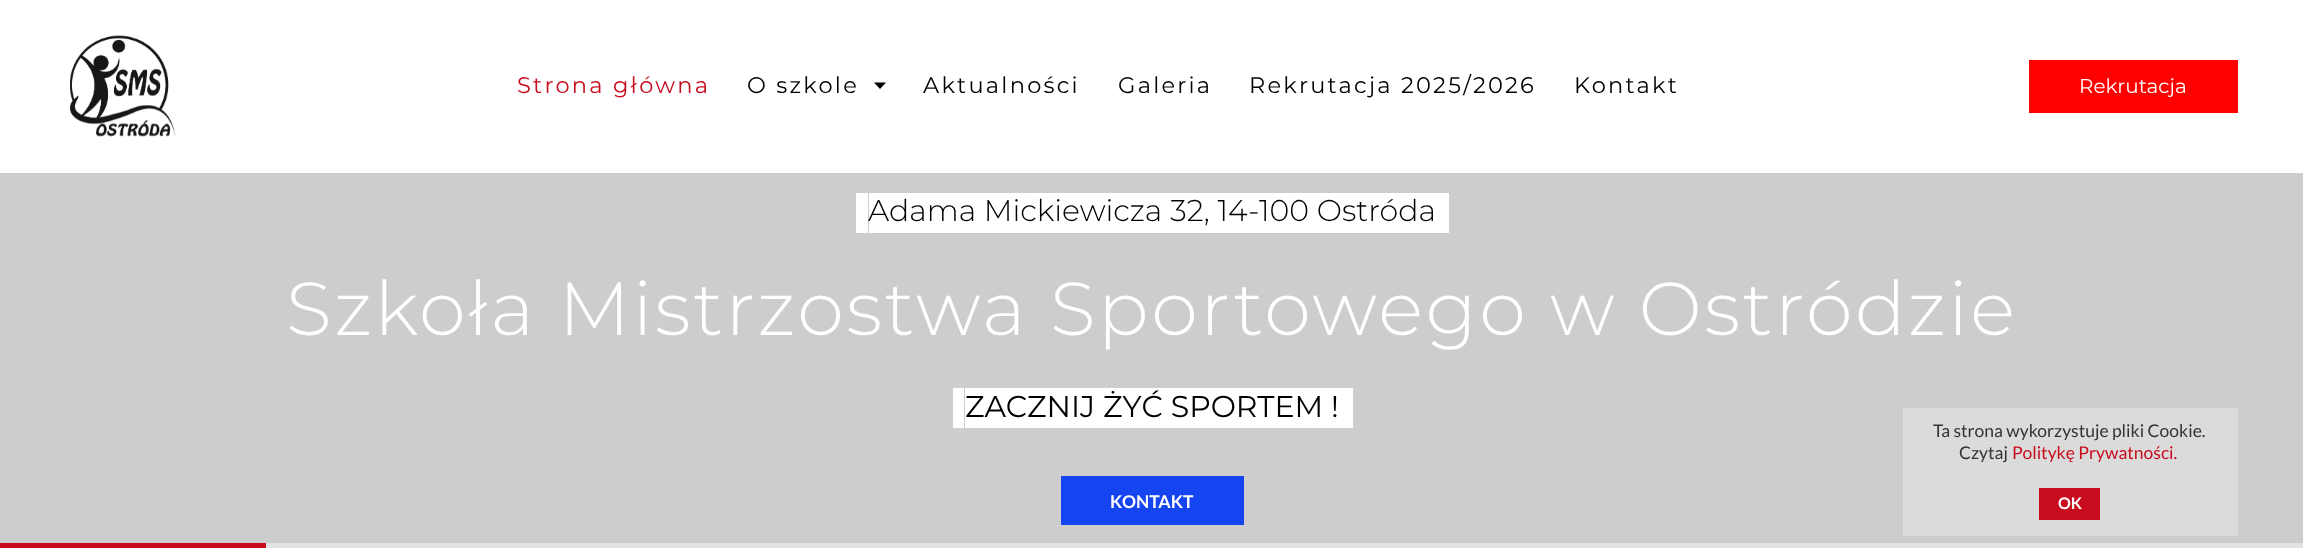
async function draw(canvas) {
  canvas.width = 2303
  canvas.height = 548
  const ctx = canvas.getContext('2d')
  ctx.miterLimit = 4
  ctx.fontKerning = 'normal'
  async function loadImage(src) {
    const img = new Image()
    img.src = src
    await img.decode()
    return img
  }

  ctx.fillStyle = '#fff'
  ctx.fillRect(0, 0, 2303, 548)
  ctx.drawImage(await loadImage('image0.png'), 70, 35, 106, 102)
  ctx.letterSpacing = '2.25px'
  ctx.font = '22.5px Montserrat'
  ctx.fillStyle = '#c80c1d'
  ctx.fillText('Strona główna', 517, 93)
  ctx.fillStyle = '#000'
  ctx.fillText('O szkole', 747, 93)
  ctx.beginPath()
  ctx.moveTo(874, 82.5)
  ctx.lineTo(886, 82.5)
  ctx.lineTo(880, 89)
  ctx.closePath()
  ctx.fill()
  ctx.fillText('Aktualności', 923, 93)
  ctx.fillText('Galeria', 1118, 93)
  ctx.fillText('Rekrutacja 2025/2026', 1249, 93)
  ctx.fillText('Kontakt', 1574, 93)
  ctx.fillStyle = '#f00'
  ctx.fillRect(2029, 60, 209, 53)
  ctx.letterSpacing = '0px'
  ctx.font = '20px Montserrat'
  ctx.fillStyle = '#fff'
  ctx.fillText('Rekrutacja', 2079, 93)
  ctx.fillStyle = '#cdcdcd'
  ctx.fillRect(0, 173, 2303, 370)
  ctx.fillStyle = '#fff'
  ctx.fillRect(869, 193, 567, 40)
  ctx.font = '300 30px Montserrat'
  ctx.fillStyle = '#000'
  ctx.fillText('Adama Mickiewicza 32, 14-100 Ostróda', 868, 221)
  ctx.fillStyle = '#fff'
  ctx.beginPath()
  ctx.moveTo(856, 193)
  ctx.lineTo(856, 233)
  ctx.lineTo(1424, 233)
  ctx.lineTo(868, 233)
  ctx.lineTo(868, 193)
  ctx.closePath()
  ctx.fill()
  ctx.beginPath()
  ctx.moveTo(881, 233)
  ctx.lineTo(1449, 233)
  ctx.lineTo(1449, 193)
  ctx.lineTo(1436, 193)
  ctx.lineTo(1436, 233)
  ctx.closePath()
  ctx.fill()
  ctx.letterSpacing = '2.5px'
  ctx.font = '300 75px Montserrat'
  ctx.fillText('Szkoła Mistrzostwa Sportowego w Ostródzie', 286, 335)
  ctx.fillRect(965, 388, 374, 40)
  ctx.letterSpacing = '0px'
  ctx.font = '30px Montserrat'
  ctx.fillStyle = '#000'
  ctx.fillText('ZACZNIJ ŻYĆ SPORTEM !', 965, 417)
  ctx.fillStyle = '#fff'
  ctx.beginPath()
  ctx.moveTo(953, 388)
  ctx.lineTo(953, 428)
  ctx.lineTo(1328, 428)
  ctx.lineTo(964, 428)
  ctx.lineTo(964, 388)
  ctx.closePath()
  ctx.fill()
  ctx.beginPath()
  ctx.moveTo(978, 428)
  ctx.lineTo(1353, 428)
  ctx.lineTo(1353, 388)
  ctx.lineTo(1339, 388)
  ctx.lineTo(1339, 428)
  ctx.closePath()
  ctx.fill()
  ctx.fillStyle = '#1445f1'
  ctx.fillRect(1061, 476, 183, 49)
  ctx.font = 'bold 17.5px Lato'
  ctx.fillStyle = '#fff'
  ctx.fillText('KONTAKT', 1110, 508)
  ctx.fillStyle = '#e1e1e1'
  ctx.fillRect(266, 543, 2037, 5)
  ctx.fillStyle = '#c80c1d'
  ctx.fillRect(0, 543, 266, 5)
  ctx.fillStyle = '#dbdbdb'
  ctx.fillRect(1903, 408, 335, 128)
  ctx.font = '17.5px Lato'
  ctx.fillStyle = '#333'
  ctx.fillText('Ta strona wykorzystuje pliki Cookie.', 1933, 437)
  ctx.fillText('Czytaj', 1959, 459)
  ctx.fillStyle = '#c80c1d'
  ctx.fillText('Politykę Prywatności.', 2012, 459)
  ctx.fillRect(2039, 488, 61, 32)
  ctx.font = 'bold 16px Lato'
  ctx.fillStyle = '#fff'
  ctx.fillText('OK', 2058, 509)
}

draw(document.querySelector('canvas'))
